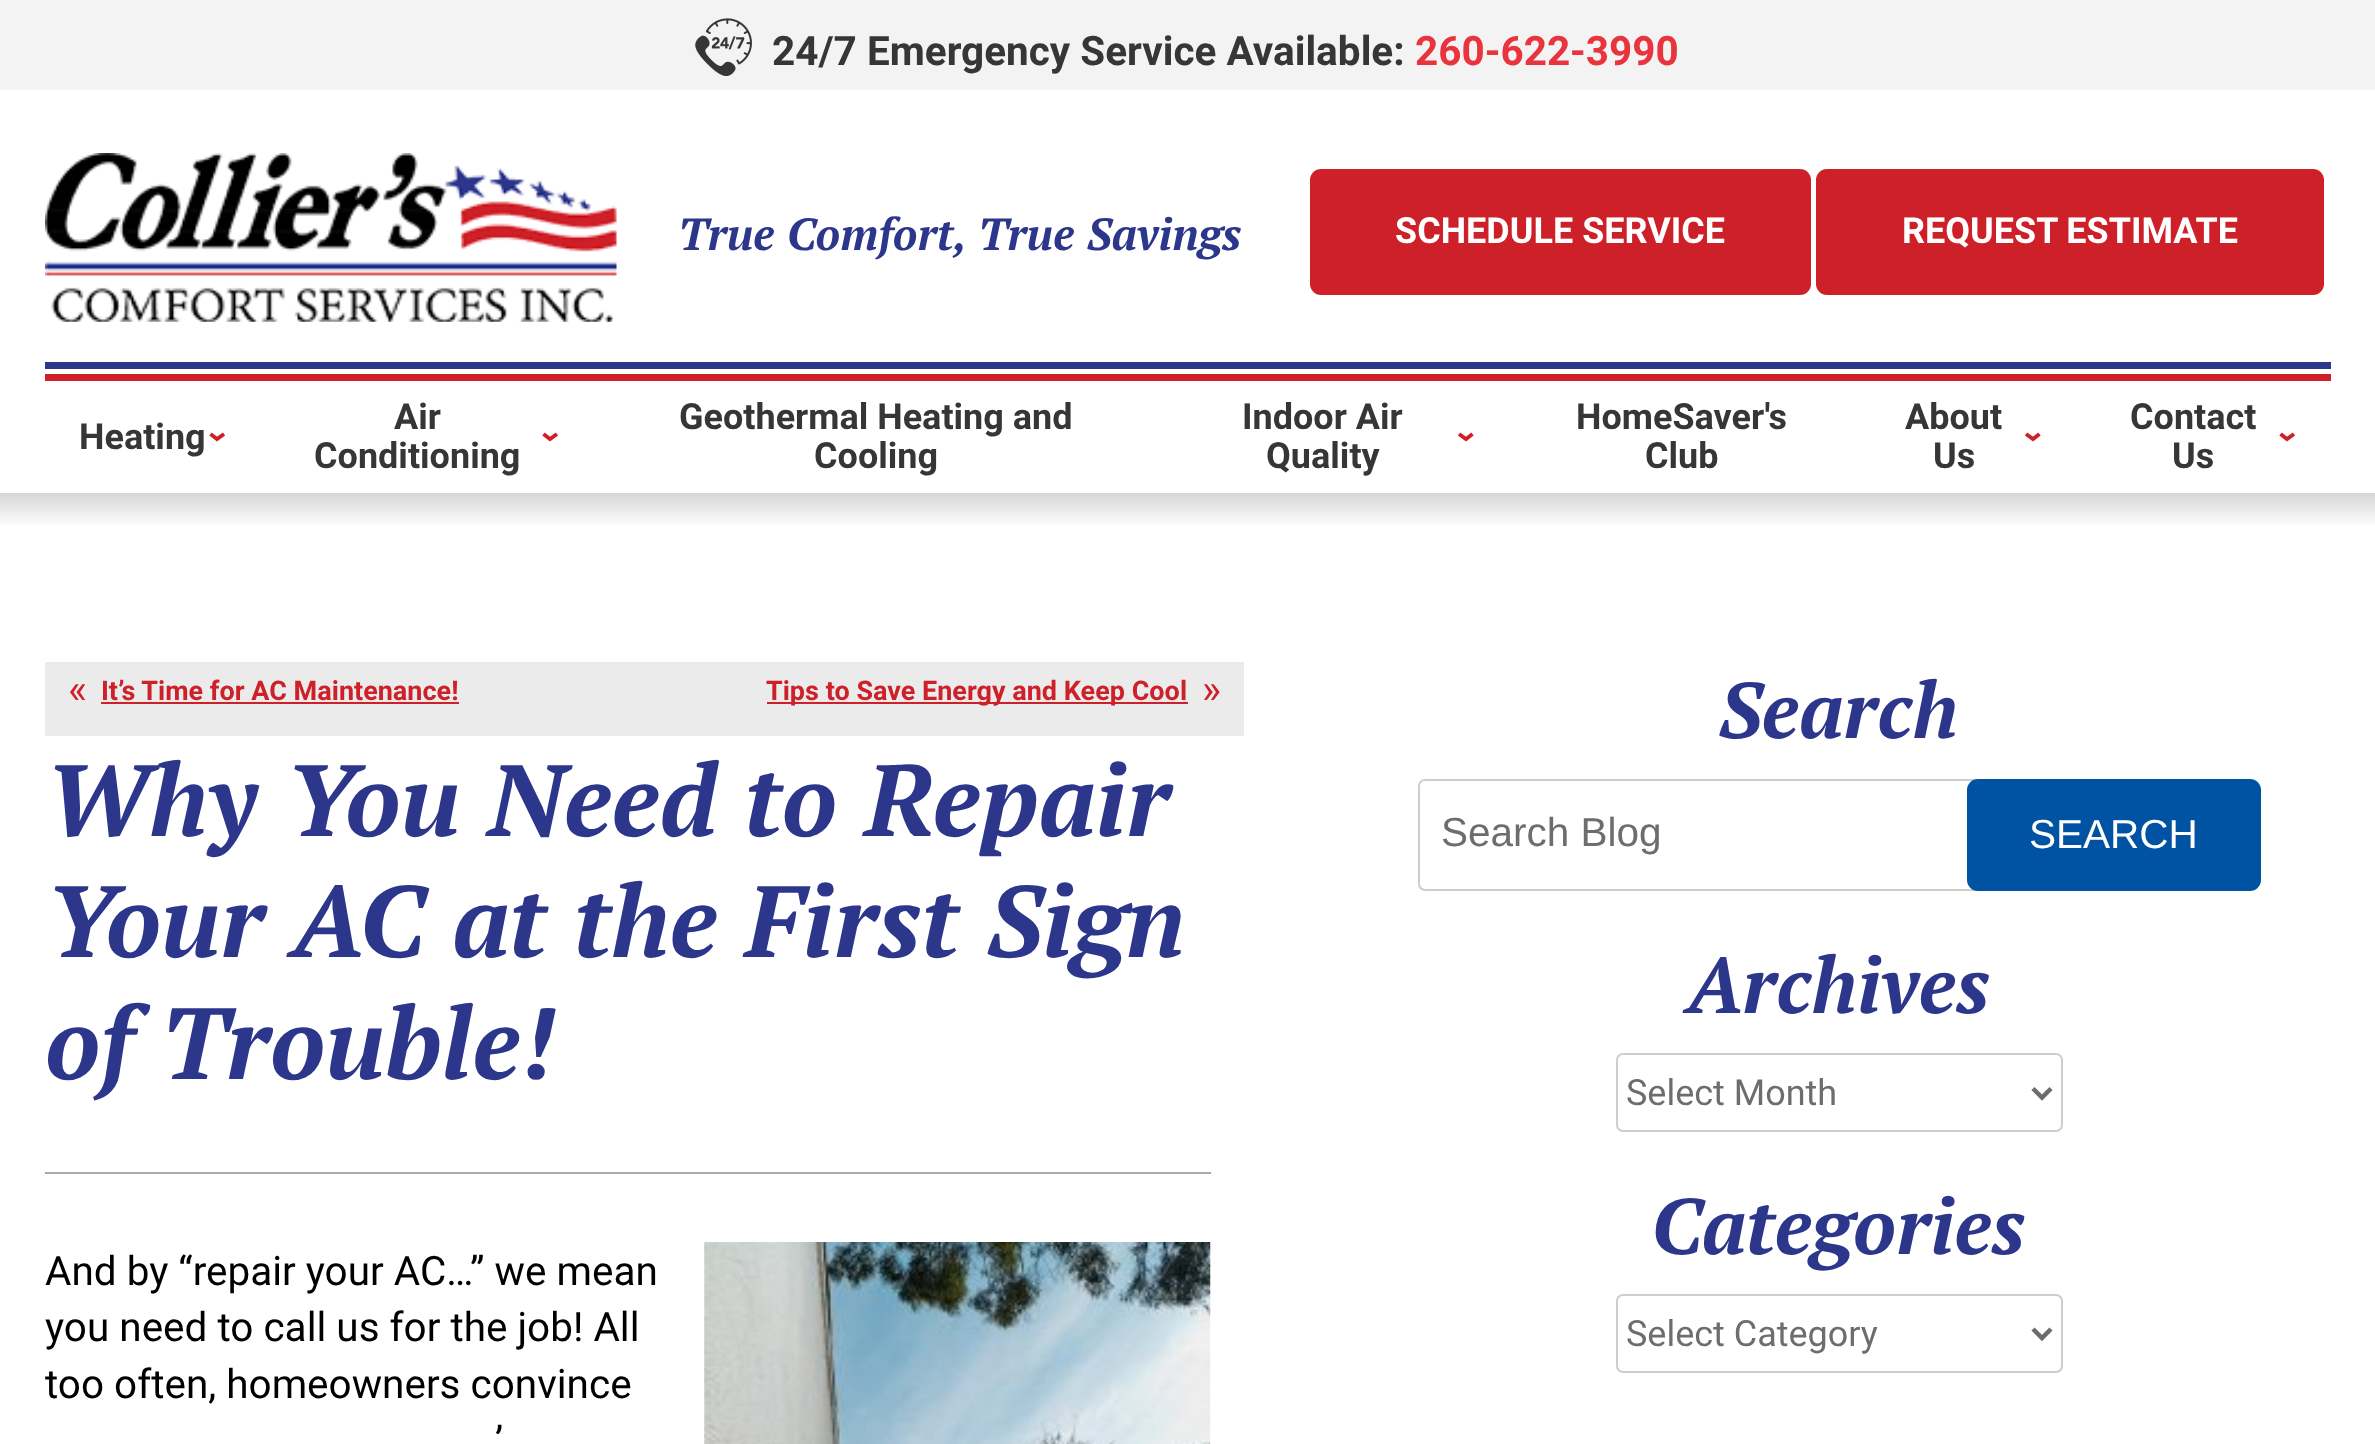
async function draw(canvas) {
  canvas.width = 2375
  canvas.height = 1444
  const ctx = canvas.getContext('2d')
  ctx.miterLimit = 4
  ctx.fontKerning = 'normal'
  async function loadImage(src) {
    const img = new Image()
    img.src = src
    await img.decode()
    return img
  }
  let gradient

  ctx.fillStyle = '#fff'
  ctx.fillRect(0, 0, 2375, 1444)
  ctx.fillStyle = '#f3f3f3'
  ctx.fillRect(0, 0, 2375, 90)
  ctx.drawImage(await loadImage('image0.png'), 695, 18, 57, 58)
  ctx.font = 'bold 40.5px Roboto'
  ctx.fillStyle = '#373535'
  ctx.fillText('24/7 Emergency Service Available:', 772, 65)
  ctx.fillStyle = '#e9333d'
  ctx.fillText('260-622-3990', 1415, 65)
  ctx.fillStyle = '#2c368b'
  ctx.fillRect(45, 362, 2286, 7)
  ctx.drawImage(await loadImage('image1.png'), 45, 153, 572, 169)
  ctx.font = 'italic bold 45px PT Serif'
  ctx.fillText('True Comfort, True Savings', 678, 250)
  ctx.fillStyle = '#ce2028'
  ctx.beginPath()
  ctx.roundRect(1310, 169, 501, 126, 11)
  ctx.fill()
  ctx.font = 'bold 36px Roboto'
  ctx.fillStyle = '#fff'
  ctx.fillText('SCHEDULE SERVICE', 1395, 243)
  ctx.fillStyle = '#ce2028'
  ctx.beginPath()
  ctx.roundRect(1816, 169, 508, 126, 11)
  ctx.fill()
  ctx.fillStyle = '#fff'
  ctx.fillText('REQUEST ESTIMATE', 1902, 243)
  ctx.fillStyle = '#ce2028'
  ctx.fillRect(45, 374, 2286, 7)
  ctx.fillStyle = '#373535'
  ctx.fillText('Heating', 79, 449)
  ctx.beginPath()
  ctx.moveTo(210.5, 434)
  ctx.lineTo(217, 439)
  ctx.lineTo(224, 434)
  ctx.strokeStyle = '#ce2028'
  ctx.lineWidth = 3.9
  ctx.stroke()
  ctx.fillText('Air', 394, 429)
  ctx.beginPath()
  ctx.moveTo(543.5, 434)
  ctx.lineTo(550, 439)
  ctx.lineTo(557, 434)
  ctx.stroke()
  ctx.fillText('Conditioning', 314, 468)
  ctx.fillText('Geothermal Heating and', 679, 429)
  ctx.fillText('Cooling', 814, 468)
  ctx.fillText('Indoor Air', 1242, 429)
  ctx.beginPath()
  ctx.moveTo(1459, 434)
  ctx.lineTo(1466, 439)
  ctx.lineTo(1472.5, 434)
  ctx.stroke()
  ctx.fillText('Quality', 1266, 468)
  ctx.fillText('HomeSaver\'s', 1576, 429)
  ctx.fillText('Club', 1645, 468)
  ctx.fillText('About', 1905, 429)
  ctx.beginPath()
  ctx.moveTo(2026, 434)
  ctx.lineTo(2033, 439)
  ctx.lineTo(2039.5, 434)
  ctx.stroke()
  ctx.fillText('Us', 1933, 468)
  ctx.fillText('Contact', 2130, 429)
  ctx.beginPath()
  ctx.moveTo(2280.5, 434)
  ctx.lineTo(2287, 439)
  ctx.lineTo(2294, 434)
  ctx.stroke()
  ctx.fillText('Us', 2172, 468)
  gradient = ctx.createLinearGradient(1188, 527, 1188, 493)
  gradient.addColorStop(0, '#fff')
  gradient.addColorStop(1, '#d6d6d6')
  ctx.fillStyle = gradient
  ctx.fillRect(0, 493, 2375, 32)
  ctx.fillStyle = '#ebebeb'
  ctx.fillRect(45, 662, 1199, 74)
  ctx.font = '40.5px Roboto'
  ctx.fillStyle = '#ce2028'
  ctx.fillText('«', 68, 703)
  ctx.font = 'bold 27px Roboto'
  ctx.fillText('It’s Time for AC Maintenance!', 101, 700)
  ctx.fillRect(101, 702, 358, 2)
  ctx.fillRect(767, 702, 421, 2)
  ctx.fillText('Tips to Save Energy and Keep Cool', 766, 700)
  ctx.font = '40.5px Roboto'
  ctx.fillText('»', 1202, 703)
  ctx.font = 'italic bold 101.25px PT Serif'
  ctx.fillStyle = '#2c368b'
  ctx.fillText('Why You Need to Repair', 45, 836)
  ctx.fillText('Your AC at the First Sign', 45, 957)
  ctx.fillText('of Trouble!', 45, 1079)
  ctx.fillStyle = '#ababab'
  ctx.fillRect(45, 1172, 1166, 2)
  ctx.font = '40.5px Roboto'
  ctx.fillStyle = '#000'
  ctx.fillText('And by “repair your AC…” we mean', 45, 1285)
  ctx.drawImage(await loadImage('image2.png'), 704, 1242, 507, 202)
  ctx.fillText('you need to call us for the job! All', 45, 1341)
  ctx.fillText('too often, homeowners convince', 45, 1398)
  ctx.fillText('’', 495, 1455)
  ctx.font = 'italic bold 78.75px PT Serif'
  ctx.fillStyle = '#2c368b'
  ctx.fillText('Search', 1718, 738)
  ctx.beginPath()
  ctx.roundRect(1419, 780, 569, 110, 6)
  ctx.strokeStyle = '#cecece'
  ctx.lineWidth = 2
  ctx.stroke()
  ctx.font = '40.5px Liberation Sans'
  ctx.fillStyle = '#6d6d6d'
  ctx.fillText('Search Blog', 1441, 846)
  ctx.fillStyle = '#0053a2'
  ctx.beginPath()
  ctx.roundRect(1967, 779, 294, 112, 11)
  ctx.fill()
  ctx.fillStyle = '#fff'
  ctx.fillText('SEARCH', 2029, 848)
  ctx.font = 'italic bold 78.75px PT Serif'
  ctx.fillStyle = '#2c368b'
  ctx.fillText('Archives', 1686, 1013)
  ctx.beginPath()
  ctx.roundRect(1617, 1054, 445, 77, 6)
  ctx.stroke()
  ctx.beginPath()
  ctx.moveTo(2033, 1088.5)
  ctx.lineTo(2042, 1097.5)
  ctx.lineTo(2051, 1088.5)
  ctx.strokeStyle = '#6d6d6d'
  ctx.lineWidth = 4.5
  ctx.stroke()
  ctx.font = '36px Roboto'
  ctx.fillStyle = '#6d6d6d'
  ctx.fillText('Select Month', 1626, 1105)
  ctx.font = 'italic bold 78.75px PT Serif'
  ctx.fillStyle = '#2c368b'
  ctx.fillText('Categories', 1651, 1254)
  ctx.beginPath()
  ctx.roundRect(1617, 1295, 445, 77, 6)
  ctx.strokeStyle = '#cecece'
  ctx.lineWidth = 2
  ctx.stroke()
  ctx.beginPath()
  ctx.moveTo(2033, 1329)
  ctx.lineTo(2042, 1338)
  ctx.lineTo(2051, 1329)
  ctx.strokeStyle = '#6d6d6d'
  ctx.lineWidth = 4.5
  ctx.stroke()
  ctx.font = '36px Roboto'
  ctx.fillStyle = '#6d6d6d'
  ctx.fillText('Select Category', 1626, 1346)
}

draw(document.querySelector('canvas'))
